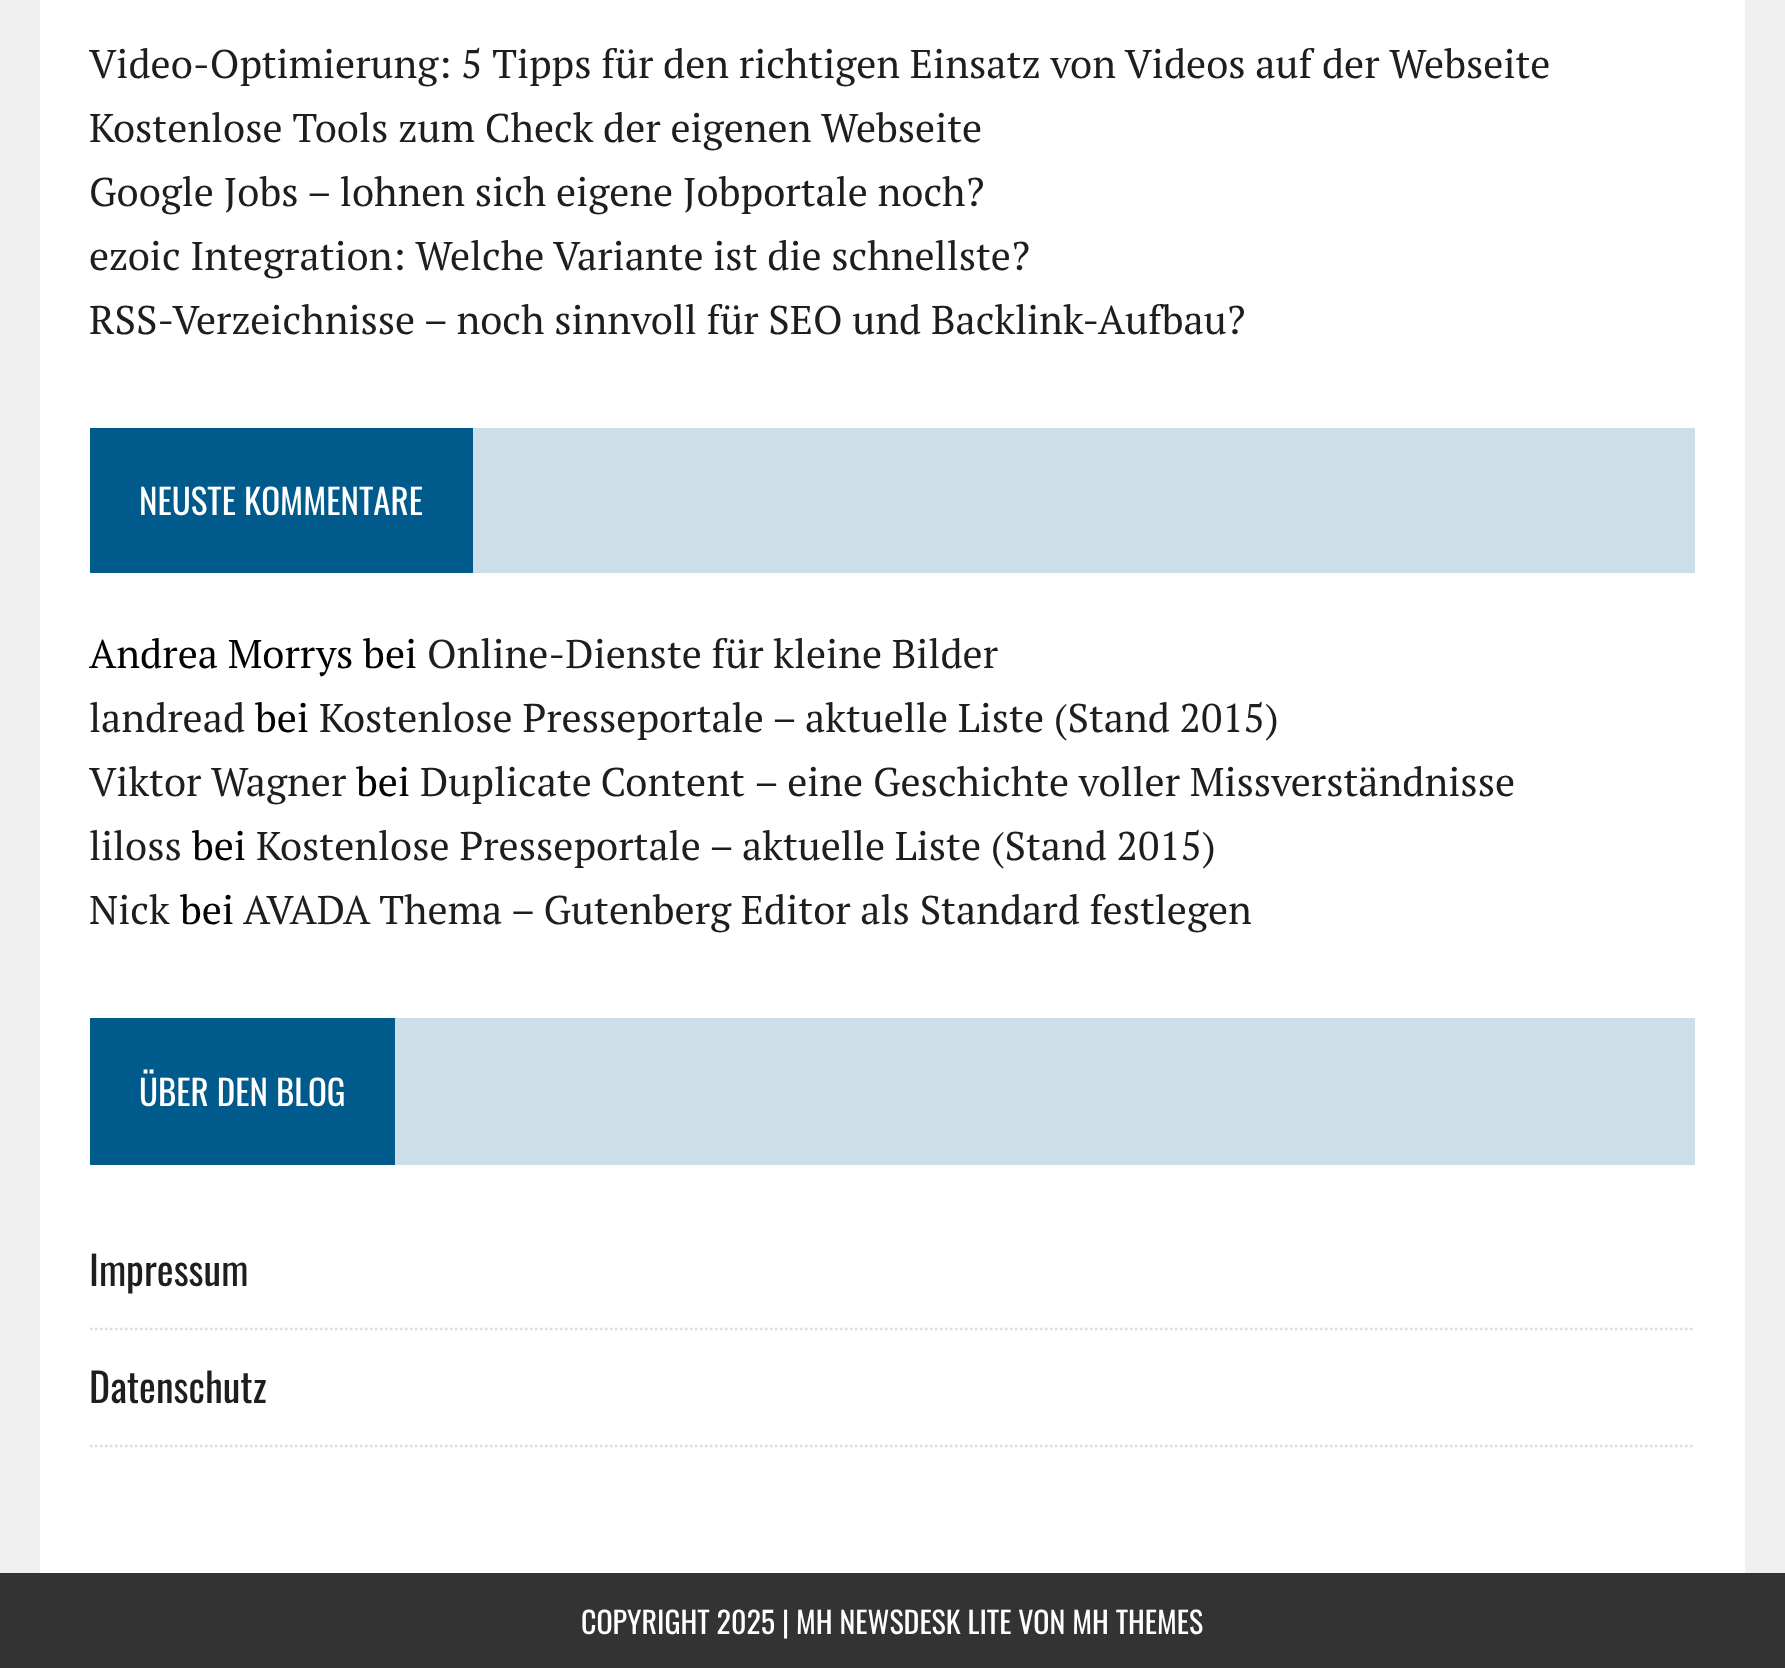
async function draw(canvas) {
  canvas.width = 1785
  canvas.height = 1668
  const ctx = canvas.getContext('2d')
  ctx.miterLimit = 4
  ctx.fontKerning = 'normal'

  ctx.fillStyle = '#efefef'
  ctx.fillRect(0, 0, 1785, 1668)
  ctx.fillStyle = '#fff'
  ctx.fillRect(40, 0, 1705, 1573)
  ctx.font = '40px PT Serif'
  ctx.fillStyle = '#1f1e1e'
  ctx.fillText('Video-Optimierung: 5 Tipps für den richtigen Einsatz von Videos auf der Webseite', 89, 78)
  ctx.fillText('Kostenlose Tools zum Check der eigenen Webseite', 89, 142)
  ctx.fillText('Google Jobs – lohnen sich eigene Jobportale noch?', 89, 206)
  ctx.fillText('ezoic Integration: Welche Variante ist die schnellste?', 89, 270)
  ctx.fillText('RSS-Verzeichnisse – noch sinnvoll für SEO und Backlink-Aufbau?', 89, 334)
  ctx.fillStyle = '#ccdee8'
  ctx.fillRect(473, 428, 1222, 145)
  ctx.fillStyle = '#005a8c'
  ctx.fillRect(90, 428, 383, 145)
  ctx.font = '35px Oswald'
  ctx.fillStyle = '#fff'
  ctx.fillText('NEUSTE KOMMENTARE', 139, 515)
  ctx.font = '40px PT Serif'
  ctx.fillStyle = '#000'
  ctx.fillText('Andrea Morrys bei', 89, 668)
  ctx.fillStyle = '#1f1e1e'
  ctx.fillText('Online-Dienste für kleine Bilder', 427, 668)
  ctx.fillText('landread', 89, 732)
  ctx.fillStyle = '#000'
  ctx.fillText('bei', 255, 732)
  ctx.fillStyle = '#1f1e1e'
  ctx.fillText('Kostenlose Presseportale – aktuelle Liste (Stand 2015)', 319, 732)
  ctx.fillText('Viktor Wagner', 89, 796)
  ctx.fillStyle = '#000'
  ctx.fillText('bei', 356, 796)
  ctx.wordSpacing = '-1px'
  ctx.fillStyle = '#1f1e1e'
  ctx.fillText('Duplicate Content', 420, 796)
  ctx.wordSpacing = '0px'
  ctx.fillText('– eine Geschichte voller Missverständnisse', 754, 796)
  ctx.fillText('liloss', 89, 860)
  ctx.fillStyle = '#000'
  ctx.fillText('bei', 192, 860)
  ctx.fillStyle = '#1f1e1e'
  ctx.fillText('Kostenlose Presseportale – aktuelle Liste (Stand 2015)', 256, 860)
  ctx.fillText('Nick', 89, 924)
  ctx.fillStyle = '#000'
  ctx.fillText('bei', 180, 924)
  ctx.fillStyle = '#1f1e1e'
  ctx.fillText('AVADA Thema – Gutenberg Editor als Standard festlegen', 243, 924)
  ctx.fillStyle = '#ccdee8'
  ctx.fillRect(395, 1018, 1300, 147)
  ctx.fillStyle = '#005a8c'
  ctx.fillRect(90, 1018, 305, 147)
  ctx.font = '35px Oswald'
  ctx.fillStyle = '#fff'
  ctx.fillText('ÜBER DEN BLOG', 139, 1106)
  ctx.beginPath()
  ctx.moveTo(90, 1329)
  ctx.lineTo(1695, 1329)
  ctx.strokeStyle = '#dcdcdc'
  ctx.lineWidth = 2.5
  ctx.setLineDash([2.5, 2.5])
  ctx.stroke()
  ctx.font = '40px Oswald'
  ctx.fillStyle = '#1f1e1e'
  ctx.fillText('Impressum', 89, 1286)
  ctx.beginPath()
  ctx.moveTo(90, 1446)
  ctx.lineTo(1695, 1446)
  ctx.stroke()
  ctx.fillText('Datenschutz', 89, 1403)
  ctx.fillStyle = '#333'
  ctx.fillRect(0, 1573, 1785, 95)
  ctx.font = '30px Oswald'
  ctx.fillStyle = '#fff'
  ctx.fillText('COPYRIGHT 2025 | MH NEWSDESK LITE VON MH THEMES', 581, 1634)
}

draw(document.querySelector('canvas'))
